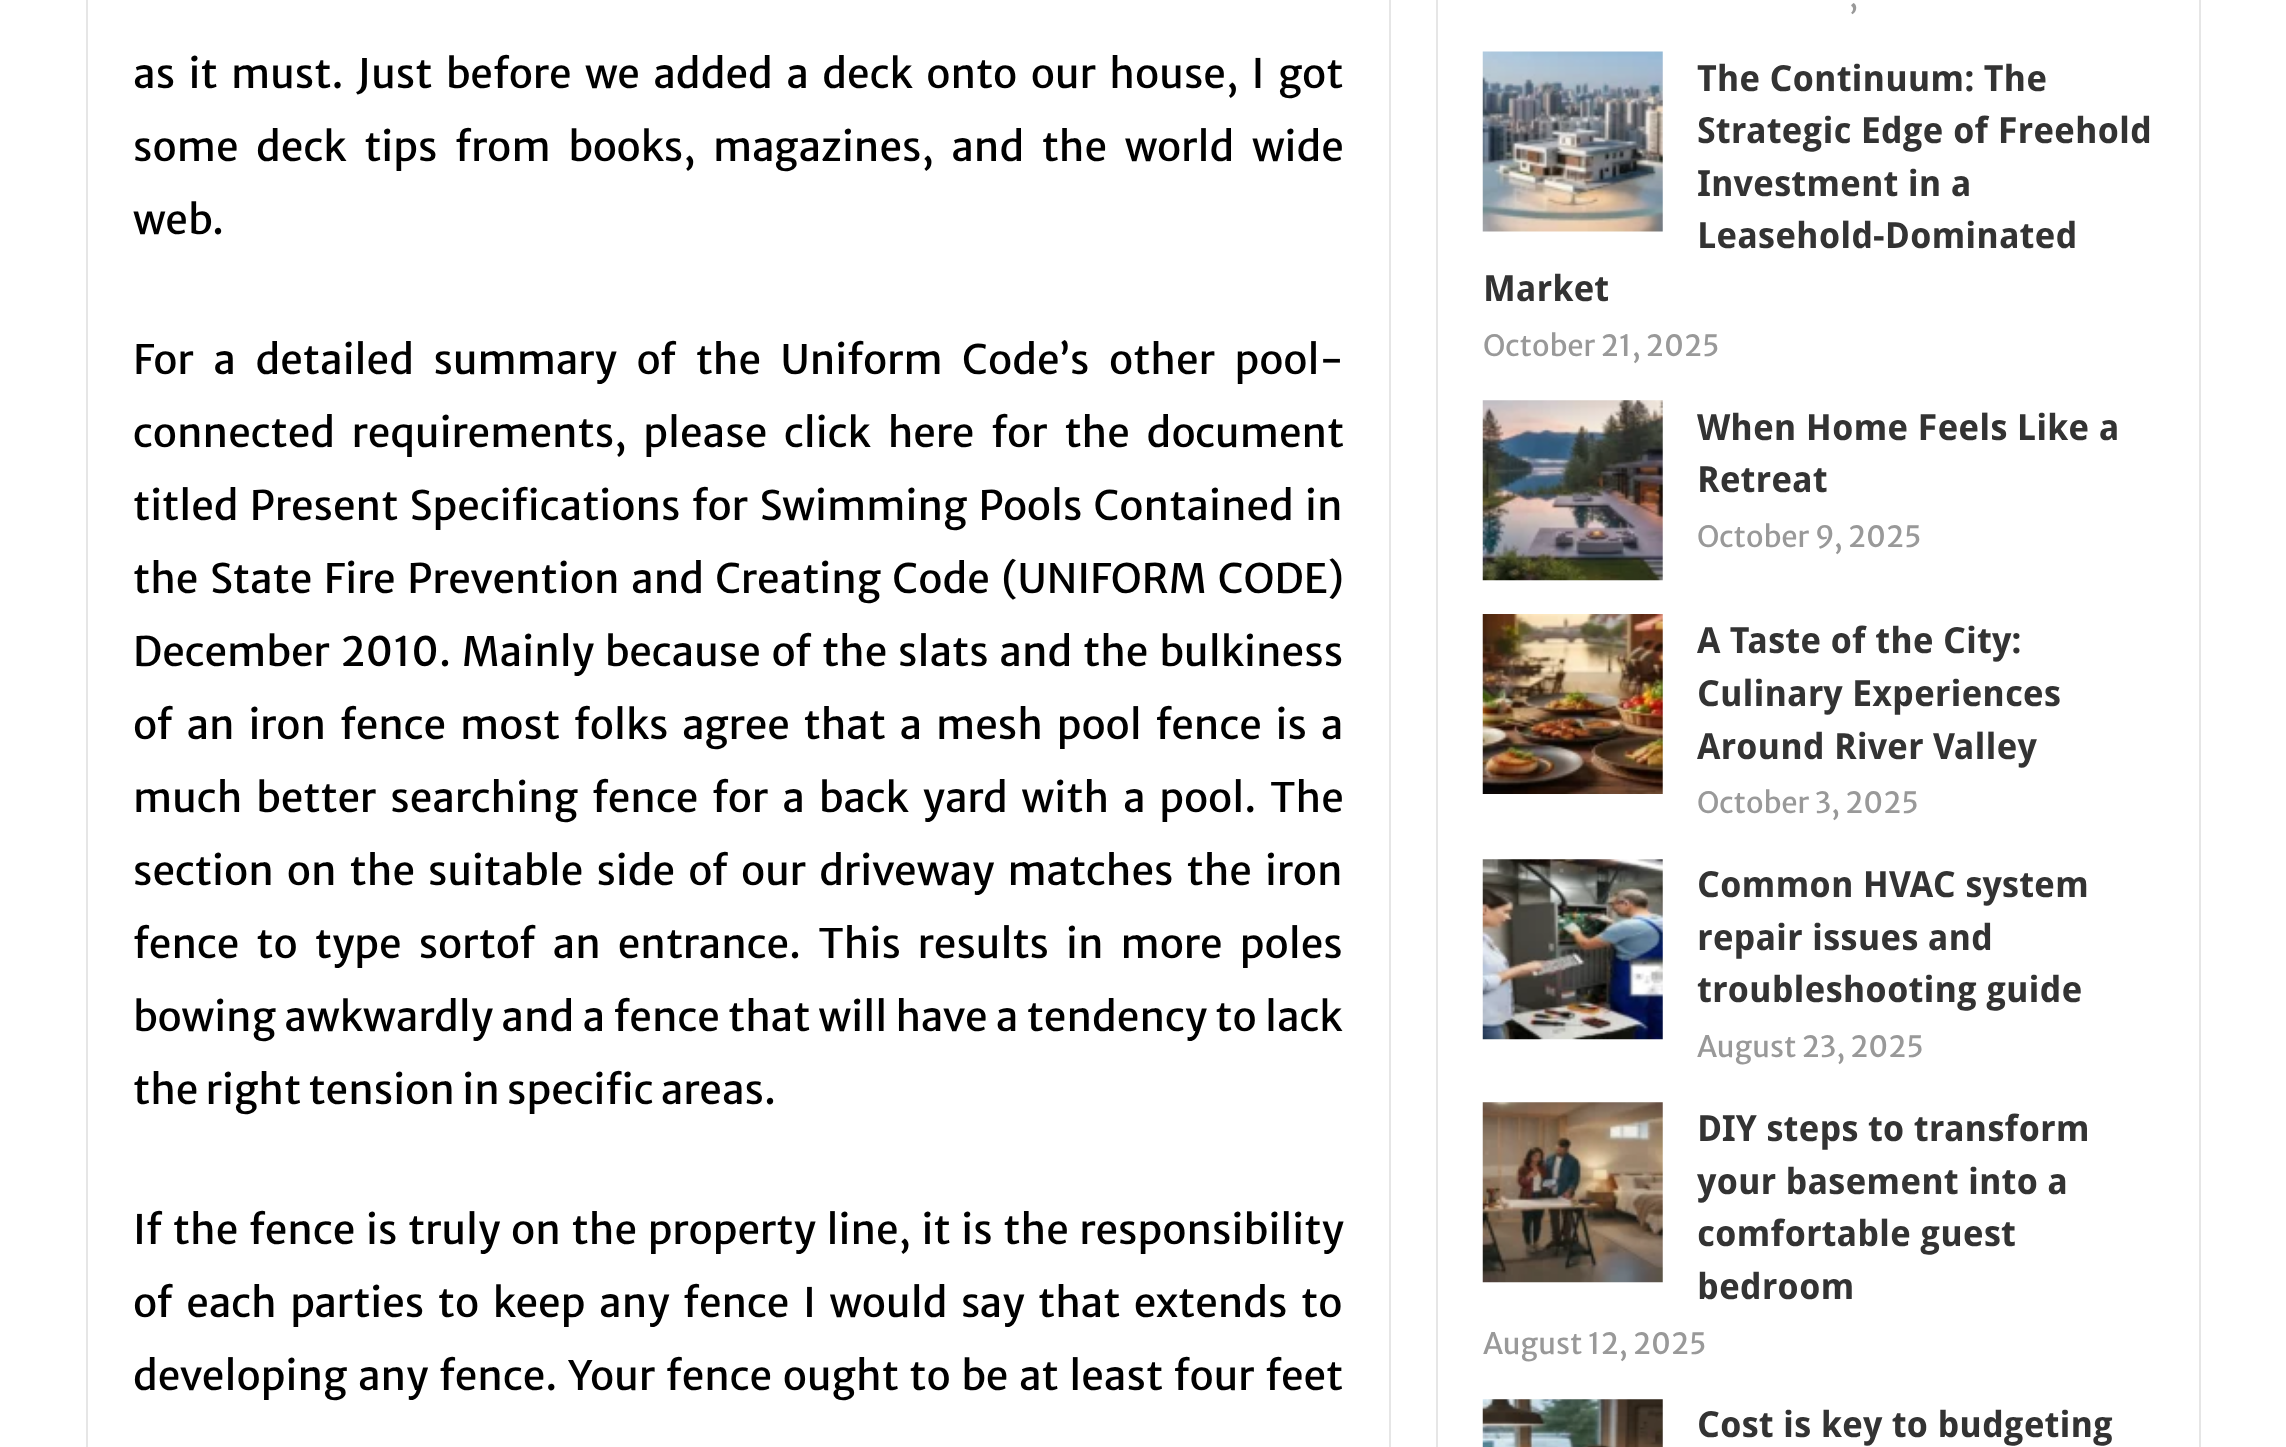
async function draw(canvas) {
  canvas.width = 2286
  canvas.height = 1447
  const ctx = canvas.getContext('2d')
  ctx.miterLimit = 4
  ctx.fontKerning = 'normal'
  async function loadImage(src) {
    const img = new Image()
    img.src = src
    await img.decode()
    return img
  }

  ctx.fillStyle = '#fff'
  ctx.fillRect(0, 0, 2286, 1447)
  ctx.strokeStyle = '#e6e6e6'
  ctx.lineWidth = 2
  ctx.strokeRect(87, -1, 1303, 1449)
  ctx.wordSpacing = '6.1px'
  ctx.font = '40.5px Merriweather Sans'
  ctx.fillStyle = '#000'
  ctx.fillText('as it must. Just before we added a deck onto our house, I got', 133, 88)
  ctx.wordSpacing = '10.25px'
  ctx.fillText('some deck tips from books, magazines, and the world wide', 133, 161)
  ctx.wordSpacing = '0px'
  ctx.fillText('web.', 133, 234)
  ctx.wordSpacing = '12.25px'
  ctx.fillText('For a detailed summary of the Uniform Code’s other pool-', 133, 374)
  ctx.wordSpacing = '9.5px'
  ctx.fillText('connected requirements, please click here for the document', 133, 447)
  ctx.wordSpacing = '4px'
  ctx.fillText('titled Present Specifications for Swimming Pools Contained in', 133, 520)
  ctx.wordSpacing = '4.25px'
  ctx.fillText('the State Fire Prevention and Creating Code (UNIFORM CODE)', 133, 593)
  ctx.wordSpacing = '3.4px'
  ctx.fillText('December 2010. Mainly because of the slats and the bulkiness', 133, 666)
  ctx.wordSpacing = '6.5px'
  ctx.fillText('of an iron fence most folks agree that a mesh pool fence is a', 133, 739)
  ctx.fillText('much better searching fence for a back yard with a pool. The', 133, 812)
  ctx.wordSpacing = '5.75px'
  ctx.fillText('section on the suitable side of our driveway matches the iron', 133, 885)
  ctx.wordSpacing = '9.75px'
  ctx.fillText('fence to type sortof an entrance. This results in more poles', 133, 958)
  ctx.wordSpacing = '1px'
  ctx.fillText('bowing awkwardly and a fence that will have a tendency to lack', 133, 1031)
  ctx.wordSpacing = '0px'
  ctx.fillText('the right tension in specific areas.', 133, 1104)
  ctx.wordSpacing = '3.4px'
  ctx.fillText('If the fence is truly on the property line, it is the responsibility', 133, 1244)
  ctx.wordSpacing = '6.25px'
  ctx.fillText('of each parties to keep any fence I would say that extends to', 133, 1317)
  ctx.wordSpacing = '3.25px'
  ctx.fillText('developing any fence. Your fence ought to be at least four feet', 133, 1390)
  ctx.strokeRect(1437, -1, 763, 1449)
  ctx.wordSpacing = '0px'
  ctx.font = '29.25px Merriweather Sans'
  ctx.fillStyle = '#999'
  ctx.fillText(',', 1849, 7)
  ctx.drawImage(await loadImage('image0.png'), 1482, 51, 181, 181)
  ctx.font = 'bold 36px Droid Sans'
  ctx.fillStyle = '#333'
  ctx.fillText('The Continuum: The', 1697, 91)
  ctx.fillText('Strategic Edge of Freehold', 1697, 143)
  ctx.fillText('Investment in a', 1697, 196)
  ctx.fillText('Leasehold-Dominated', 1697, 248)
  ctx.fillText('Market', 1483, 301)
  ctx.font = '29.25px Merriweather Sans'
  ctx.fillStyle = '#999'
  ctx.fillText('October 21, 2025', 1483, 356)
  ctx.drawImage(await loadImage('image1.png'), 1482, 400, 181, 181)
  ctx.font = 'bold 36px Droid Sans'
  ctx.fillStyle = '#333'
  ctx.fillText('When Home Feels Like a', 1697, 440)
  ctx.fillText('Retreat', 1697, 492)
  ctx.font = '29.25px Merriweather Sans'
  ctx.fillStyle = '#999'
  ctx.fillText('October 9, 2025', 1697, 547)
  ctx.drawImage(await loadImage('image2.png'), 1482, 614, 181, 180)
  ctx.font = 'bold 36px Droid Sans'
  ctx.fillStyle = '#333'
  ctx.fillText('A Taste of the City:', 1697, 653)
  ctx.fillText('Culinary Experiences', 1697, 706)
  ctx.fillText('Around River Valley', 1697, 759)
  ctx.font = '29.25px Merriweather Sans'
  ctx.fillStyle = '#999'
  ctx.fillText('October 3, 2025', 1697, 813)
  ctx.drawImage(await loadImage('image3.png'), 1482, 859, 181, 181)
  ctx.font = 'bold 36px Droid Sans'
  ctx.fillStyle = '#333'
  ctx.fillText('Common HVAC system', 1697, 897)
  ctx.fillText('repair issues and', 1697, 950)
  ctx.fillText('troubleshooting guide', 1697, 1002)
  ctx.font = '29.25px Merriweather Sans'
  ctx.fillStyle = '#999'
  ctx.fillText('August 23, 2025', 1697, 1057)
  ctx.drawImage(await loadImage('image4.png'), 1482, 1102, 181, 181)
  ctx.font = 'bold 36px Droid Sans'
  ctx.fillStyle = '#333'
  ctx.fillText('DIY steps to transform', 1697, 1141)
  ctx.fillText('your basement into a', 1697, 1194)
  ctx.fillText('comfortable guest', 1697, 1246)
  ctx.fillText('bedroom', 1697, 1299)
  ctx.font = '29.25px Merriweather Sans'
  ctx.fillStyle = '#999'
  ctx.fillText('August 12, 2025', 1483, 1354)
  ctx.drawImage(await loadImage('image5.png'), 1482, 1399, 181, 48)
  ctx.font = 'bold 36px Droid Sans'
  ctx.fillStyle = '#333'
  ctx.fillText('Cost is key to budgeting', 1697, 1437)
}

draw(document.querySelector('canvas'))
